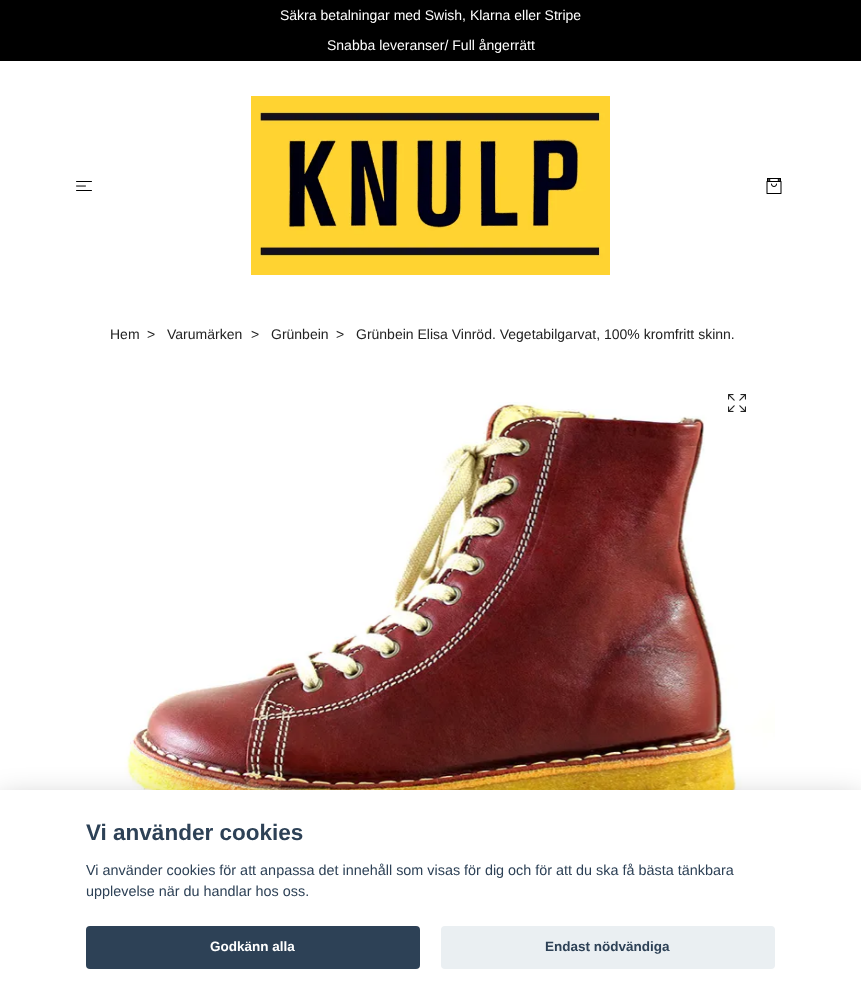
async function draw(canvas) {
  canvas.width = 861
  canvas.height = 999
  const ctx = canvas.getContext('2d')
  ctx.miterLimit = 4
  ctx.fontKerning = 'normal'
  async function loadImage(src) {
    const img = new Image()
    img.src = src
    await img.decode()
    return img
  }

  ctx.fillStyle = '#fff'
  ctx.fillRect(0, 0, 861, 999)
  ctx.fillStyle = '#000'
  ctx.fillRect(0, 0, 861, 61)
  ctx.font = '14px Liberation Sans'
  ctx.fillStyle = '#fff'
  ctx.fillText('Säkra betalningar med Swish, Klarna eller Stripe', 280, 20)
  ctx.fillText('Snabba leveranser/ Full ångerrätt', 327, 50)
  ctx.drawImage(await loadImage('image0.png'), 76, 181, 16, 10)
  ctx.drawImage(await loadImage('image1.png'), 251, 96, 359, 179)
  ctx.drawImage(await loadImage('image2.png'), 766, 178, 16, 16)
  ctx.fillStyle = '#222'
  ctx.fillText('Hem', 110, 339)
  ctx.fillText('>', 147, 339)
  ctx.fillText('Varumärken', 167, 339)
  ctx.fillText('>', 251, 339)
  ctx.fillText('Grünbein', 271, 339)
  ctx.fillText('>', 336, 339)
  ctx.fillText('Grünbein Elisa Vinröd. Vegetabilgarvat, 100% kromfritt skinn.', 356, 339)
  ctx.drawImage(await loadImage('image4.png'), 124, 402, 651, 388)
  ctx.drawImage(await loadImage('image3.png'), 728, 394, 18, 18)
  ctx.fillStyle = '#02020347'
  ctx.filter = 'blur(15px)'
  ctx.beginPath()
  ctx.rect(0, 800, 861, 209)
  ctx.fill()
  ctx.filter = 'none'
  ctx.fillStyle = '#fff'
  ctx.fillRect(0, 790, 861, 209)
  ctx.font = 'bold 22.5px Liberation Sans'
  ctx.fillStyle = '#2d4156'
  ctx.fillText('Vi använder cookies', 86, 840)
  ctx.font = '14.4px Liberation Sans'
  ctx.fillText('Vi använder cookies för att anpassa det innehåll som visas för dig och för att du ska få bästa tänkbara', 86, 875)
  ctx.fillText('upplevelse när du handlar hos oss.', 86, 896)
  ctx.beginPath()
  ctx.roundRect(86, 926, 334, 43, 4)
  ctx.fill()
  ctx.font = 'bold 13.5px Liberation Sans'
  ctx.fillStyle = '#fff'
  ctx.fillText('Godkänn alla', 210, 951)
  ctx.fillStyle = '#eaeff2'
  ctx.beginPath()
  ctx.roundRect(441, 926, 334, 43, 4)
  ctx.fill()
  ctx.fillStyle = '#2d4156'
  ctx.fillText('Endast nödvändiga', 545, 951)
}

draw(document.querySelector('canvas'))
